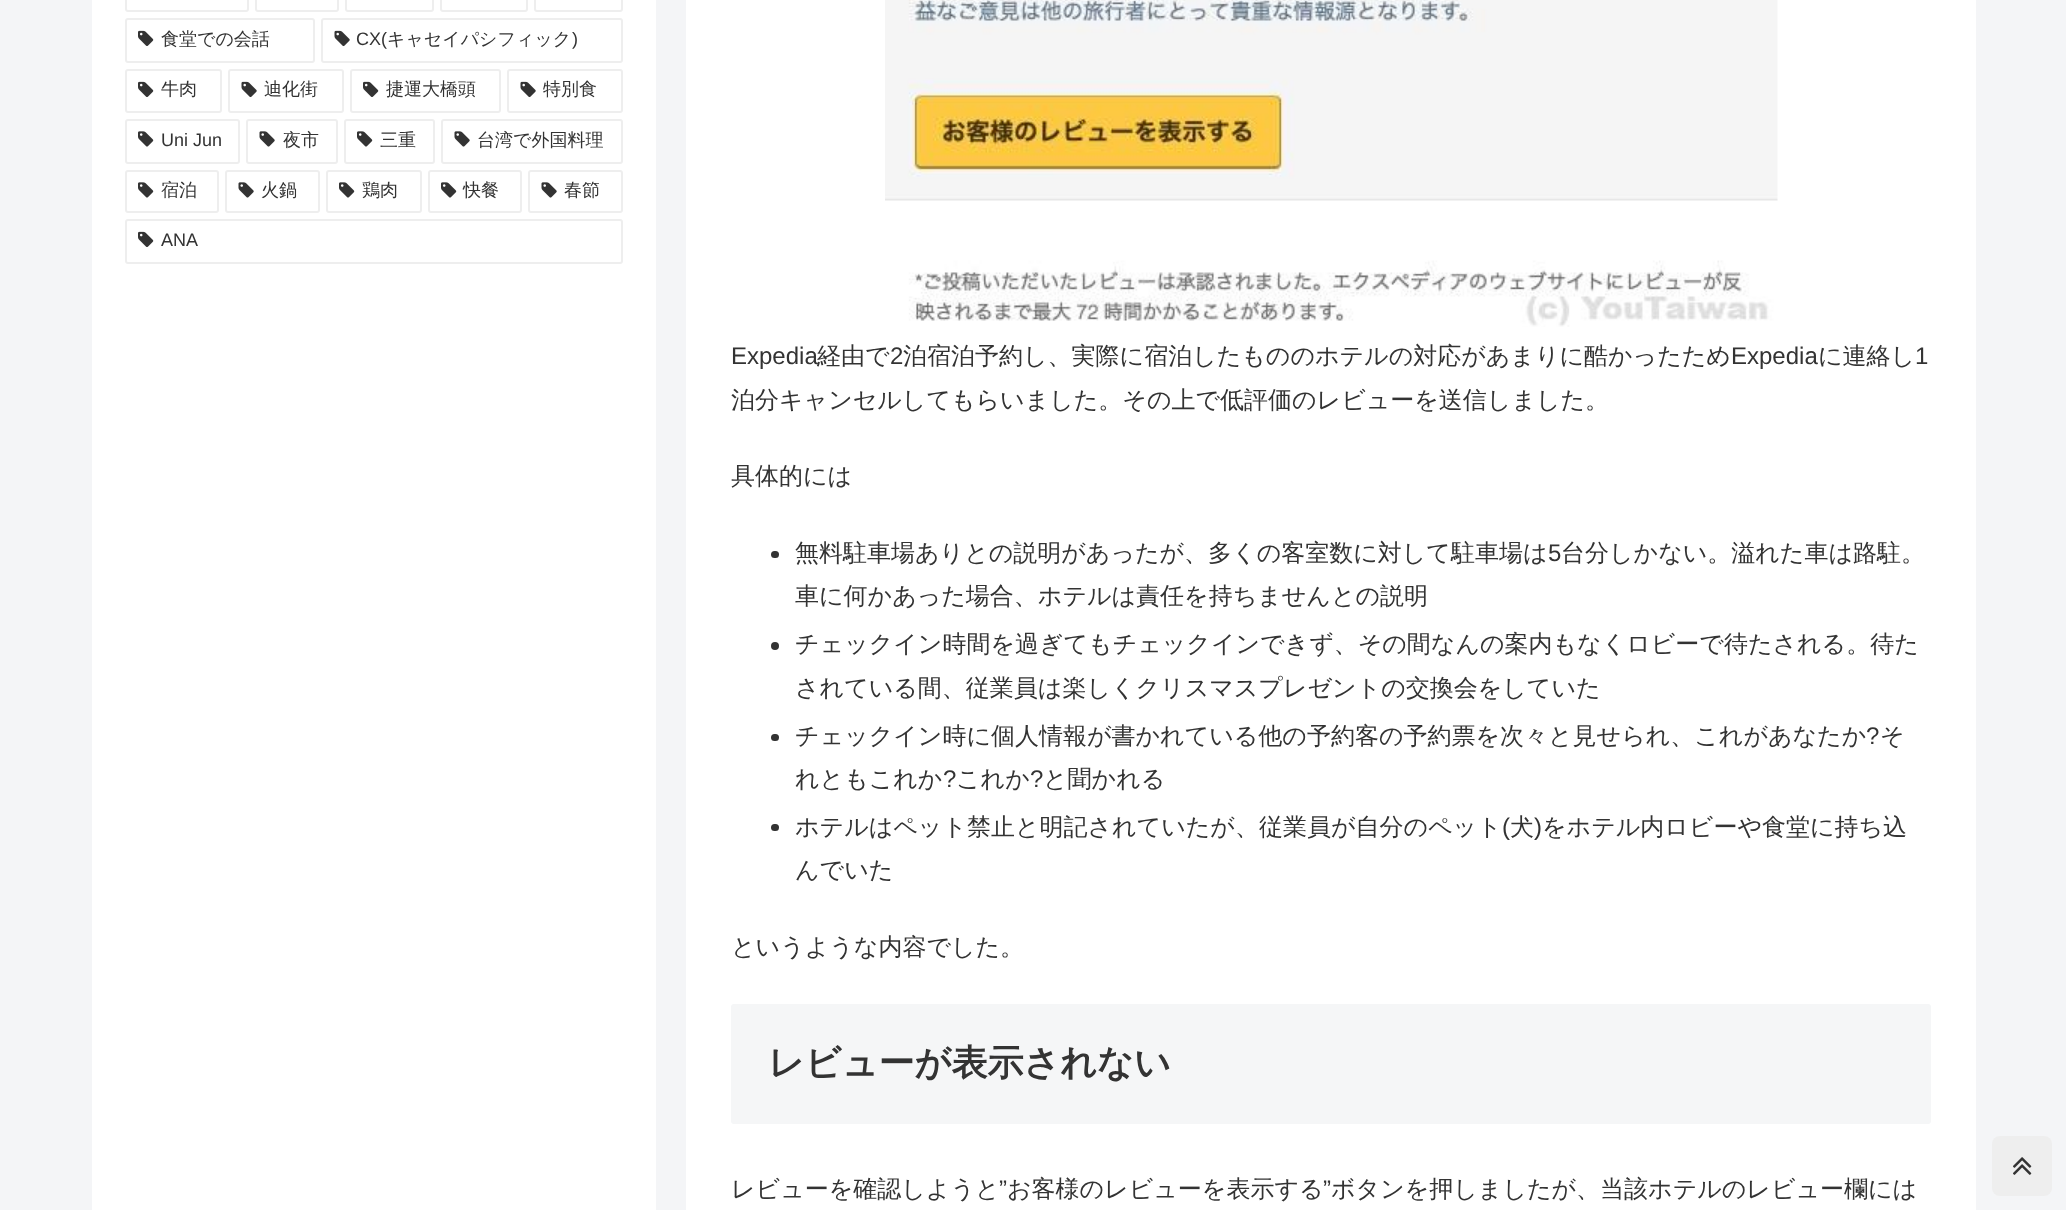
async function draw(canvas) {
  canvas.width = 2066
  canvas.height = 1210
  const ctx = canvas.getContext('2d')
  ctx.miterLimit = 4
  ctx.fontKerning = 'normal'
  async function loadImage(src) {
    const img = new Image()
    img.src = src
    await img.decode()
    return img
  }

  ctx.fillStyle = '#f4f5f7'
  ctx.fillRect(0, 0, 2066, 1210)
  ctx.fillStyle = '#fff'
  ctx.fillRect(92, 0, 564, 1210)
  ctx.beginPath()
  ctx.roundRect(126, -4, 122, 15, 2)
  ctx.strokeStyle = '#eee'
  ctx.lineWidth = 2
  ctx.stroke()
  ctx.beginPath()
  ctx.roundRect(256, -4, 82, 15, 2)
  ctx.stroke()
  ctx.beginPath()
  ctx.roundRect(346, -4, 87, 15, 2)
  ctx.stroke()
  ctx.beginPath()
  ctx.roundRect(441, -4, 86, 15, 2)
  ctx.stroke()
  ctx.beginPath()
  ctx.roundRect(535, -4, 87, 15, 2)
  ctx.stroke()
  ctx.beginPath()
  ctx.roundRect(126, 19, 188, 43, 2)
  ctx.stroke()
  ctx.drawImage(await loadImage('image0.png'), 138, 30, 16, 16)
  ctx.font = '500 18px WenQuanYi Zen Hei'
  ctx.fillStyle = '#333'
  ctx.fillText('食堂での会話', 161, 45)
  ctx.beginPath()
  ctx.roundRect(322, 19, 300, 43, 2)
  ctx.stroke()
  ctx.drawImage(await loadImage('image1.png'), 334, 30, 16, 17)
  ctx.font = '18px Liberation Sans'
  ctx.fillText('CX(', 356, 45)
  ctx.font = '500 18px WenQuanYi Zen Hei'
  ctx.fillText('キャセイパシフィック', 387, 45)
  ctx.font = '18px Liberation Sans'
  ctx.fillText(')', 572, 45)
  ctx.beginPath()
  ctx.roundRect(126, 70, 95, 42, 2)
  ctx.stroke()
  ctx.drawImage(await loadImage('image0.png'), 138, 81, 16, 16)
  ctx.font = '500 18px WenQuanYi Zen Hei'
  ctx.fillText('牛肉', 161, 95)
  ctx.beginPath()
  ctx.roundRect(229, 70, 114, 42, 2)
  ctx.stroke()
  ctx.drawImage(await loadImage('image1.png'), 241, 81, 16, 17)
  ctx.fillText('迪化街', 264, 95)
  ctx.beginPath()
  ctx.roundRect(351, 70, 149, 42, 2)
  ctx.stroke()
  ctx.drawImage(await loadImage('image0.png'), 363, 81, 16, 16)
  ctx.fillText('捷運大橋頭', 386, 95)
  ctx.beginPath()
  ctx.roundRect(508, 70, 114, 42, 2)
  ctx.stroke()
  ctx.drawImage(await loadImage('image1.png'), 520, 81, 16, 17)
  ctx.fillText('特別食', 543, 95)
  ctx.beginPath()
  ctx.roundRect(126, 120, 113, 43, 2)
  ctx.stroke()
  ctx.drawImage(await loadImage('image2.png'), 138, 131, 16, 16)
  ctx.font = '18px Liberation Sans'
  ctx.fillText('Uni Jun', 161, 146)
  ctx.beginPath()
  ctx.roundRect(247, 120, 90, 43, 2)
  ctx.stroke()
  ctx.drawImage(await loadImage('image3.png'), 259, 131, 16, 16)
  ctx.font = '500 18px WenQuanYi Zen Hei'
  ctx.fillText('夜市', 283, 146)
  ctx.beginPath()
  ctx.roundRect(345, 120, 89, 43, 2)
  ctx.stroke()
  ctx.drawImage(await loadImage('image2.png'), 357, 131, 16, 16)
  ctx.fillText('三重', 380, 146)
  ctx.beginPath()
  ctx.roundRect(442, 120, 180, 43, 2)
  ctx.stroke()
  ctx.drawImage(await loadImage('image3.png'), 454, 131, 16, 16)
  ctx.fillText('台湾で外国料理', 477, 146)
  ctx.beginPath()
  ctx.roundRect(126, 171, 92, 41, 2)
  ctx.stroke()
  ctx.drawImage(await loadImage('image2.png'), 138, 182, 16, 16)
  ctx.fillText('宿泊', 161, 196)
  ctx.beginPath()
  ctx.roundRect(226, 171, 93, 41, 2)
  ctx.stroke()
  ctx.drawImage(await loadImage('image3.png'), 238, 182, 16, 16)
  ctx.fillText('火鍋', 261, 196)
  ctx.beginPath()
  ctx.roundRect(327, 171, 94, 41, 2)
  ctx.stroke()
  ctx.drawImage(await loadImage('image2.png'), 339, 182, 16, 16)
  ctx.fillText('鶏肉', 362, 196)
  ctx.beginPath()
  ctx.roundRect(429, 171, 92, 41, 2)
  ctx.stroke()
  ctx.drawImage(await loadImage('image2.png'), 441, 182, 16, 16)
  ctx.fillText('快餐', 463, 196)
  ctx.beginPath()
  ctx.roundRect(529, 171, 93, 41, 2)
  ctx.stroke()
  ctx.drawImage(await loadImage('image3.png'), 541, 182, 16, 16)
  ctx.fillText('春節', 564, 196)
  ctx.beginPath()
  ctx.roundRect(126, 220, 496, 43, 2)
  ctx.stroke()
  ctx.drawImage(await loadImage('image0.png'), 138, 231, 16, 16)
  ctx.font = '18px Liberation Sans'
  ctx.fillText('ANA', 161, 246)
  ctx.fillStyle = '#fff'
  ctx.fillRect(686, 0, 1290, 1210)
  ctx.drawImage(await loadImage('image4.png'), 885, 0, 893, 327)
  ctx.font = '24px Liberation Sans'
  ctx.fillStyle = '#333'
  ctx.fillText('Expedia', 731, 364)
  ctx.font = '500 24px WenQuanYi Zen Hei'
  ctx.fillText('経由で', 817, 364)
  ctx.font = '24px Liberation Sans'
  ctx.fillText('2', 890, 364)
  ctx.font = '500 24px WenQuanYi Zen Hei'
  ctx.fillText('泊宿泊予約し、実際に宿泊したもののホテルの対応があまりに酷かったため', 903, 364)
  ctx.font = '24px Liberation Sans'
  ctx.fillText('Expedia', 1731, 364)
  ctx.font = '500 24px WenQuanYi Zen Hei'
  ctx.fillText('に連絡し', 1818, 364)
  ctx.font = '24px Liberation Sans'
  ctx.fillText('1', 1915, 364)
  ctx.font = '500 24px WenQuanYi Zen Hei'
  ctx.fillText('泊分キャンセルしてもらいました。その上で低評価のレビューを送信しました。', 731, 408)
  ctx.fillText('具体的には', 731, 484)
  ctx.beginPath()
  ctx.roundRect(771, 551, 8, 7, 3.5)
  ctx.fill()
  ctx.fillText('無料駐車場ありとの説明があったが、多くの客室数に対して駐車場は', 795, 561)
  ctx.font = '24px Liberation Sans'
  ctx.fillText('5', 1548, 561)
  ctx.font = '500 24px WenQuanYi Zen Hei'
  ctx.fillText('台分しかない。溢れた車は路駐。', 1561, 561)
  ctx.fillText('車に何かあった場合、ホテルは責任を持ちませんとの説明', 795, 604)
  ctx.beginPath()
  ctx.arc(775, 646, 4, 0, 2 * Math.PI)
  ctx.fill()
  ctx.fillText('チェックイン時間を過ぎてもチェックインできず、その間なんの案内もなくロビーで待たされる。待た', 795, 652)
  ctx.fillText('されている間、従業員は楽しくクリスマスプレゼントの交換会をしていた', 795, 696)
  ctx.beginPath()
  ctx.roundRect(771, 734, 8, 7, 3.5)
  ctx.fill()
  ctx.fillText('チェックイン時に個人情報が書かれている他の予約客の予約票を次々と見せられ、これがあなたか', 795, 744)
  ctx.font = '24px Liberation Sans'
  ctx.fillText('?', 1866, 744)
  ctx.font = '500 24px WenQuanYi Zen Hei'
  ctx.fillText('そ', 1880, 744)
  ctx.fillText('れともこれか', 795, 787)
  ctx.font = '24px Liberation Sans'
  ctx.fillText('?', 943, 787)
  ctx.font = '500 24px WenQuanYi Zen Hei'
  ctx.fillText('これか', 956, 787)
  ctx.font = '24px Liberation Sans'
  ctx.fillText('?', 1030, 787)
  ctx.font = '500 24px WenQuanYi Zen Hei'
  ctx.fillText('と聞かれる', 1043, 787)
  ctx.beginPath()
  ctx.roundRect(771, 824, 8, 7, 3.5)
  ctx.fill()
  ctx.fillText('ホテルはペット禁止と明記されていたが、従業員が自分のペット', 795, 835)
  ctx.font = '24px Liberation Sans'
  ctx.fillText('(', 1502, 835)
  ctx.font = '500 24px WenQuanYi Zen Hei'
  ctx.fillText('犬', 1510, 835)
  ctx.font = '24px Liberation Sans'
  ctx.fillText(')', 1534, 835)
  ctx.font = '500 24px WenQuanYi Zen Hei'
  ctx.fillText('をホテル内ロビーや食堂に持ち込', 1542, 835)
  ctx.fillText('んでいた', 795, 878)
  ctx.fillText('というような内容でした。', 731, 955)
  ctx.fillStyle = '#f5f6f7'
  ctx.beginPath()
  ctx.roundRect(731, 1004, 1200, 120, 3)
  ctx.fill()
  ctx.font = 'bold 36px WenQuanYi Zen Hei'
  ctx.fillStyle = '#333'
  ctx.fillText('レビューが表示されない', 768, 1075)
  ctx.font = '500 24px WenQuanYi Zen Hei'
  ctx.fillText('レビューを確認しようと', 731, 1197)
  ctx.font = '24px Liberation Sans'
  ctx.fillText('”', 999, 1197)
  ctx.font = '500 24px WenQuanYi Zen Hei'
  ctx.fillText('お客様のレビューを表示する', 1007, 1197)
  ctx.font = '24px Liberation Sans'
  ctx.fillText('”', 1323, 1197)
  ctx.font = '500 24px WenQuanYi Zen Hei'
  ctx.fillText('ボタンを押しましたが、当該ホテルのレビュー欄には', 1331, 1197)
  ctx.fillStyle = '#eee'
  ctx.beginPath()
  ctx.roundRect(1992, 1136, 60, 60, 8)
  ctx.fill()
  ctx.drawImage(await loadImage('image5.png'), 2013, 1157, 19, 18)
}

draw(document.querySelector('canvas'))
